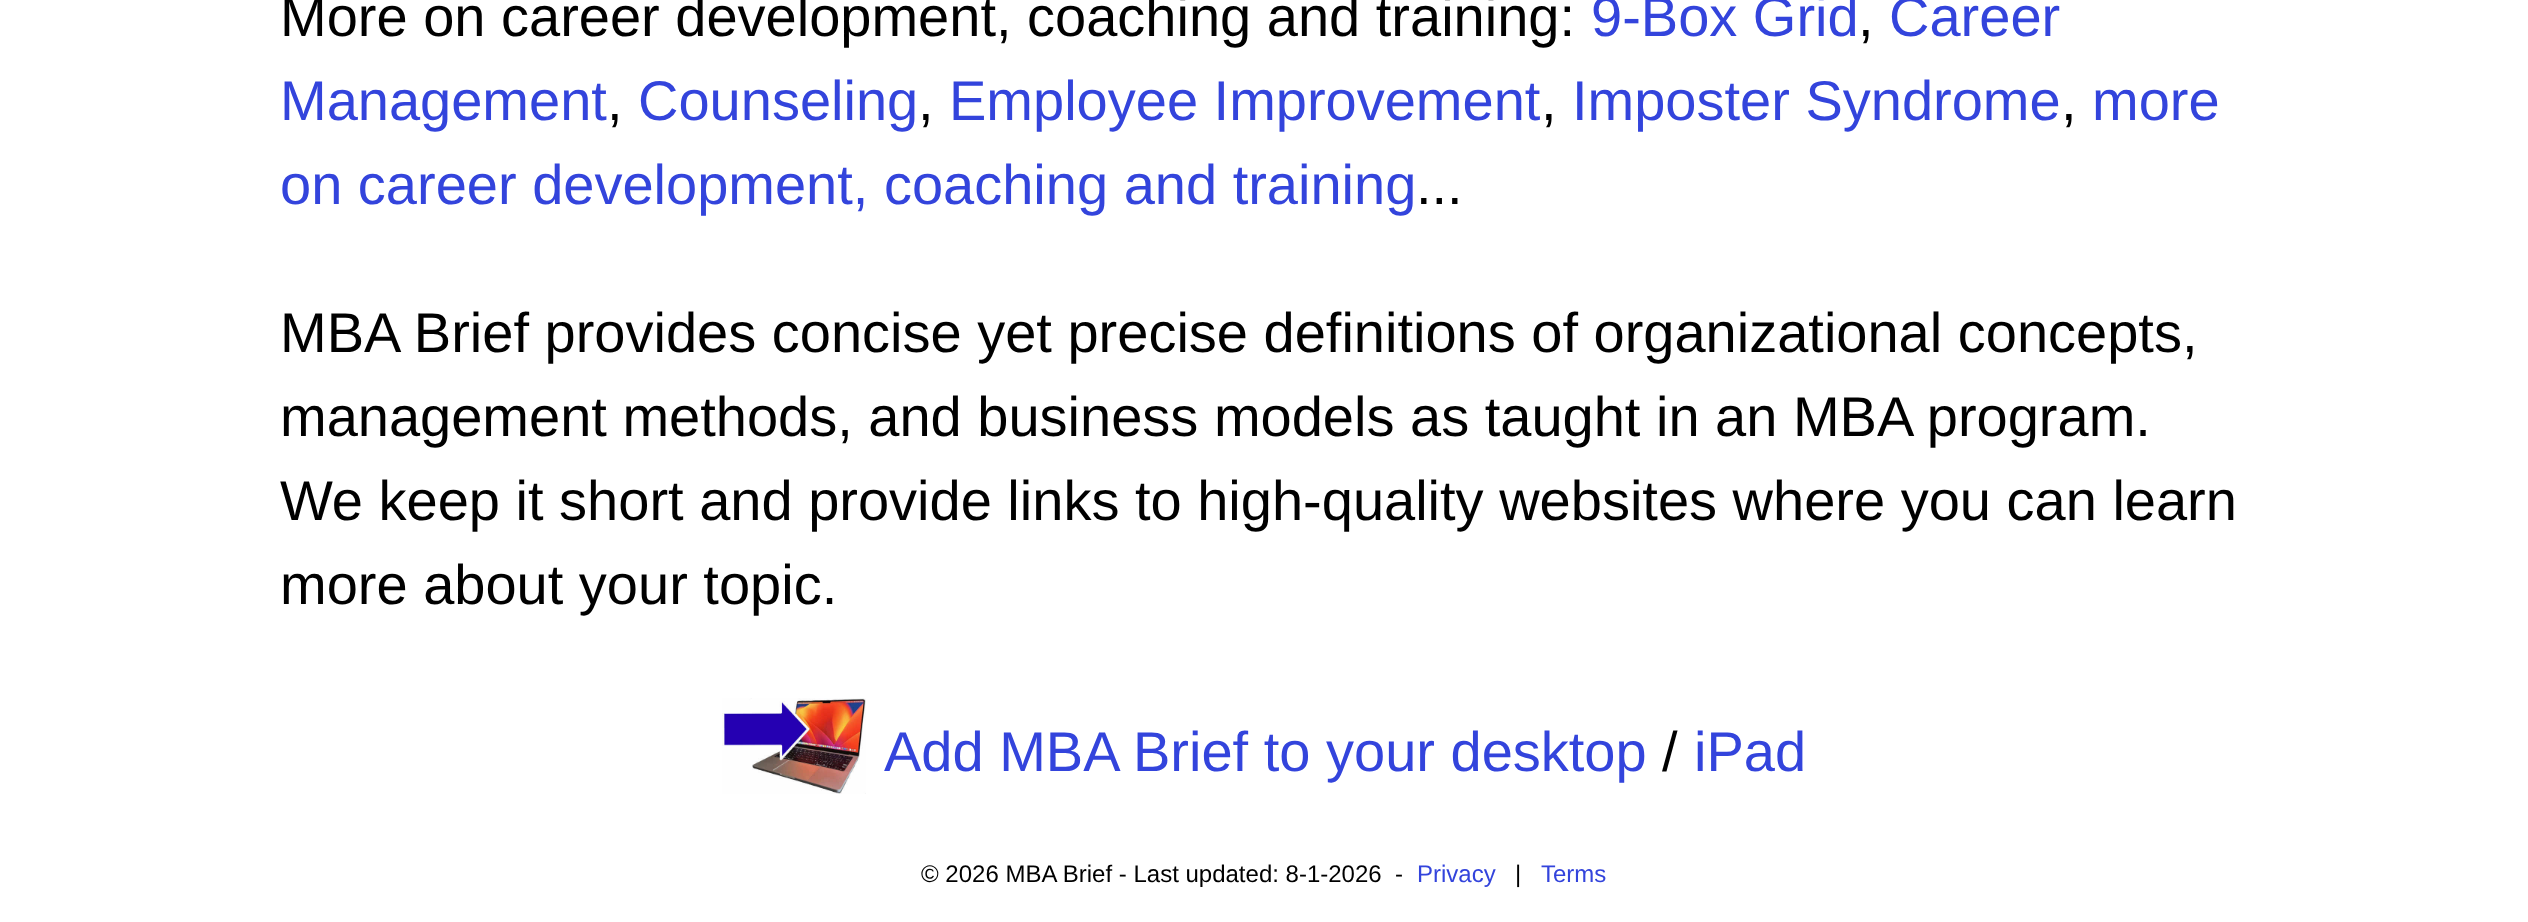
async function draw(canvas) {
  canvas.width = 2528
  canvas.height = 922
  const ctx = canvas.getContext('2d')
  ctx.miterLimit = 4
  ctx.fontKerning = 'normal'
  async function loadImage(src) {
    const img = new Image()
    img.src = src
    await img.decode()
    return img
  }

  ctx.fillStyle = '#fff'
  ctx.fillRect(0, 0, 2528, 922)
  ctx.font = '56px Liberation Sans'
  ctx.fillStyle = '#000'
  ctx.fillText('More on career development, coaching and training:', 280, 36)
  ctx.fillStyle = '#3344dc'
  ctx.fillText('9-Box Grid', 1591, 36)
  ctx.fillStyle = '#000'
  ctx.fillText(',', 1858, 36)
  ctx.fillStyle = '#3344dc'
  ctx.fillText('Career', 1889, 36)
  ctx.fillText('Management', 280, 120)
  ctx.fillStyle = '#000'
  ctx.fillText(',', 607, 120)
  ctx.fillStyle = '#3344dc'
  ctx.fillText('Counseling', 638, 120)
  ctx.fillStyle = '#000'
  ctx.fillText(',', 918, 120)
  ctx.fillStyle = '#3344dc'
  ctx.fillText('Employee Improvement', 949, 120)
  ctx.fillStyle = '#000'
  ctx.fillText(',', 1541, 120)
  ctx.fillStyle = '#3344dc'
  ctx.fillText('Imposter Syndrome', 1572, 120)
  ctx.fillStyle = '#000'
  ctx.fillText(',', 2061, 120)
  ctx.fillStyle = '#3344dc'
  ctx.fillText('more', 2092, 120)
  ctx.fillText('on career development, coaching and training', 280, 204)
  ctx.fillStyle = '#000'
  ctx.fillText('...', 1416, 204)
  ctx.fillText('MBA Brief provides concise yet precise definitions of organizational concepts,', 280, 352)
  ctx.fillText('management methods, and business models as taught in an MBA program.', 280, 436)
  ctx.fillText('We keep it short and provide links to high-quality websites where you can learn', 280, 520)
  ctx.fillText('more about your topic.', 280, 604)
  ctx.drawImage(await loadImage('image0.png'), 722, 698, 144, 96)
  ctx.fillStyle = '#3344dc'
  ctx.fillText('Add MBA Brief to your desktop', 884, 771)
  ctx.fillStyle = '#000'
  ctx.fillText('/', 1662, 771)
  ctx.fillStyle = '#3344dc'
  ctx.fillText('iPad', 1694, 771)
  ctx.font = '24px Liberation Sans'
  ctx.fillStyle = '#000'
  ctx.fillText('© 2026 MBA Brief - Last updated: 8-1-2026  -', 921, 882)
  ctx.fillStyle = '#3344dc'
  ctx.fillText('Privacy', 1417, 882)
  ctx.fillStyle = '#000'
  ctx.fillText('|', 1515, 882)
  ctx.fillStyle = '#3344dc'
  ctx.fillText('Terms', 1541, 882)
}

draw(document.querySelector('canvas'))
